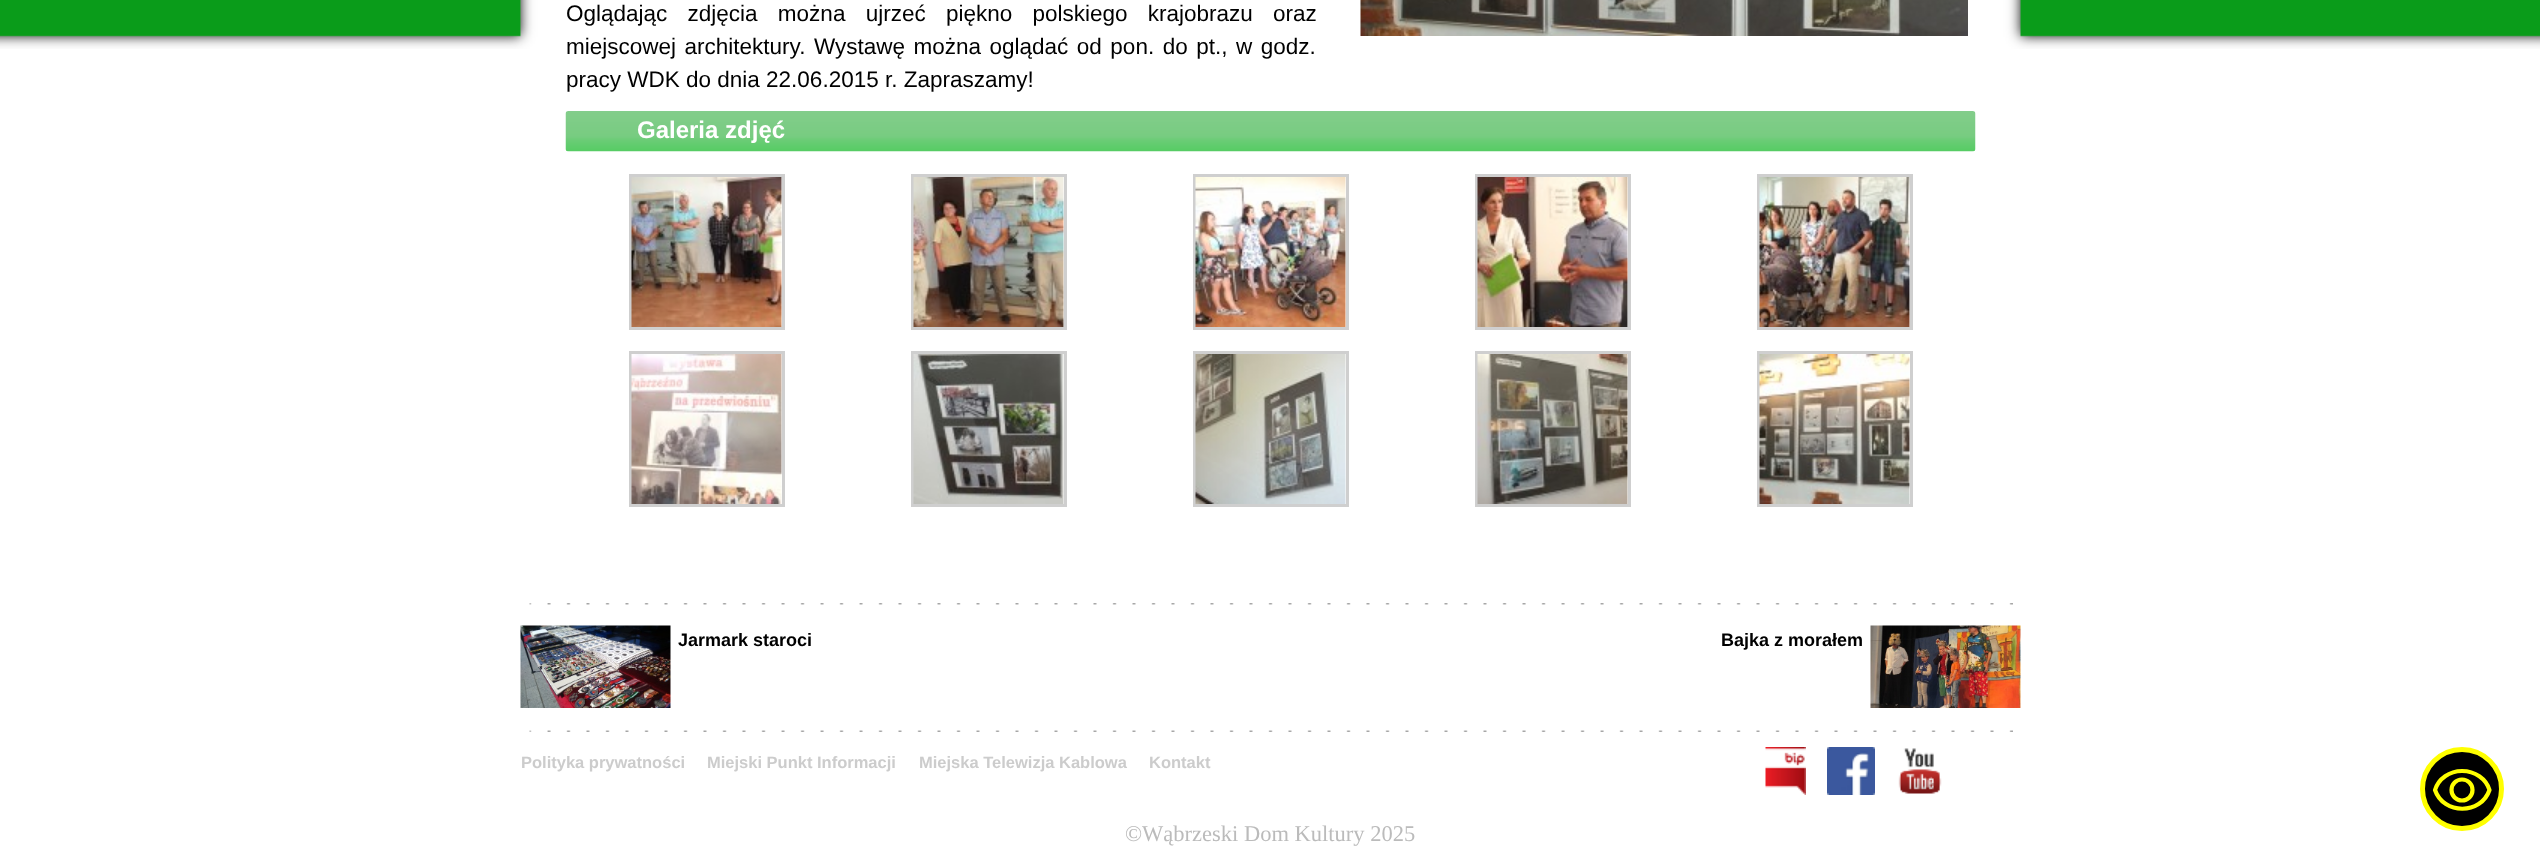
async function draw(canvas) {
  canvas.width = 2540
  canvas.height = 868
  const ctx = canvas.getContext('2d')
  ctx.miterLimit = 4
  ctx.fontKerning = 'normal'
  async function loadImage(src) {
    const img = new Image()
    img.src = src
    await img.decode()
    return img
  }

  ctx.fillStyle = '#fff'
  ctx.fillRect(0, 0, 2540, 868)
  ctx.drawImage(await loadImage('image0.png'), 0, 0, 2540, 49)
  ctx.wordSpacing = '14px'
  ctx.font = '22.5px Liberation Sans'
  ctx.fillStyle = '#000'
  ctx.fillText('Oglądając zdjęcia można ujrzeć piękno polskiego krajobrazu oraz', 566, 21)
  ctx.wordSpacing = '2.25px'
  ctx.fillText('miejscowej architektury. Wystawę można oglądać od pon. do pt., w godz.', 566, 54)
  ctx.wordSpacing = '0px'
  ctx.fillText('pracy WDK do dnia 22.06.2015 r. Zapraszamy!', 566, 87)
  ctx.drawImage(await loadImage('image1.png'), 1360, 0, 608, 36)
  ctx.drawImage(await loadImage('image2.png'), 565, 111, 1411, 41)
  ctx.font = 'bold 24px Liberation Sans'
  ctx.fillStyle = '#fff'
  ctx.fillText('Galeria zdjęć', 637, 138)
  ctx.strokeStyle = '#cfcfcf'
  ctx.lineWidth = 3
  ctx.strokeRect(630.5, 175.5, 153, 153)
  ctx.drawImage(await loadImage('image3.png'), 631, 177, 151, 150)
  ctx.strokeRect(912.5, 175.5, 153, 153)
  ctx.drawImage(await loadImage('image4.png'), 913, 177, 151, 150)
  ctx.strokeRect(1194.5, 175.5, 153, 153)
  ctx.drawImage(await loadImage('image5.png'), 1195, 177, 151, 150)
  ctx.strokeRect(1476.5, 175.5, 153, 153)
  ctx.drawImage(await loadImage('image6.png'), 1477, 177, 151, 150)
  ctx.strokeRect(1758.5, 175.5, 153, 153)
  ctx.drawImage(await loadImage('image7.png'), 1759, 177, 151, 150)
  ctx.strokeRect(630.5, 352.5, 153, 153)
  ctx.drawImage(await loadImage('image8.png'), 631, 354, 151, 150)
  ctx.strokeRect(912.5, 352.5, 153, 153)
  ctx.drawImage(await loadImage('image9.png'), 913, 354, 151, 150)
  ctx.strokeRect(1194.5, 352.5, 153, 153)
  ctx.drawImage(await loadImage('image10.png'), 1195, 354, 151, 150)
  ctx.strokeRect(1476.5, 352.5, 153, 153)
  ctx.drawImage(await loadImage('image11.png'), 1477, 354, 151, 150)
  ctx.strokeRect(1758.5, 352.5, 153, 153)
  ctx.drawImage(await loadImage('image12.png'), 1759, 354, 151, 150)
  ctx.drawImage(await loadImage('image13.png'), 529, 603, 1484, 2)
  ctx.drawImage(await loadImage('image14.png'), 520, 625, 151, 83)
  ctx.font = 'bold 18px Liberation Sans'
  ctx.fillStyle = '#000'
  ctx.fillText('Jarmark staroci', 678, 646)
  ctx.drawImage(await loadImage('image15.png'), 1870, 625, 151, 83)
  ctx.fillText('Bajka z morałem', 1721, 646)
  ctx.drawImage(await loadImage('image16.png'), 529, 730, 1484, 2)
  ctx.font = 'bold 16.5px Liberation Sans'
  ctx.fillStyle = '#ccc'
  ctx.fillText('Polityka prywatności', 521, 768)
  ctx.fillText('Miejski Punkt Informacji', 707, 768)
  ctx.fillText('Miejska Telewizja Kablowa', 919, 768)
  ctx.fillText('Kontakt', 1149, 768)
  ctx.drawImage(await loadImage('image17.png'), 1765, 747, 41, 48)
  ctx.drawImage(await loadImage('image18.png'), 1827, 747, 48, 48)
  ctx.drawImage(await loadImage('image19.png'), 1898, 748, 44, 46)
  ctx.font = '22.5px Liberation Serif'
  ctx.fillStyle = '#bbb'
  ctx.fillText('©Wąbrzeski Dom Kultury 2025', 1125, 841)
  ctx.fillStyle = '#000'
  ctx.beginPath()
  ctx.arc(2462, 789, 39.5, 0, 2 * Math.PI)
  ctx.fill()
  ctx.strokeStyle = '#ff0'
  ctx.lineWidth = 5
  ctx.stroke()
  ctx.beginPath()
  ctx.moveTo(2462, 771)
  ctx.bezierCurveTo(2449.5, 771, 2438.5, 778.5, 2435, 790)
  ctx.bezierCurveTo(2443.5, 815, 2481, 815, 2489.5, 790)
  ctx.bezierCurveTo(2486, 778.5, 2475, 771, 2462, 771)
  ctx.closePath()
  ctx.lineWidth = 4.2
  ctx.lineCap = 'round'
  ctx.lineJoin = 'round'
  ctx.stroke()
  ctx.beginPath()
  ctx.arc(2462, 790, 10.5, 0, 2 * Math.PI)
  ctx.stroke()
}

draw(document.querySelector('canvas'))
